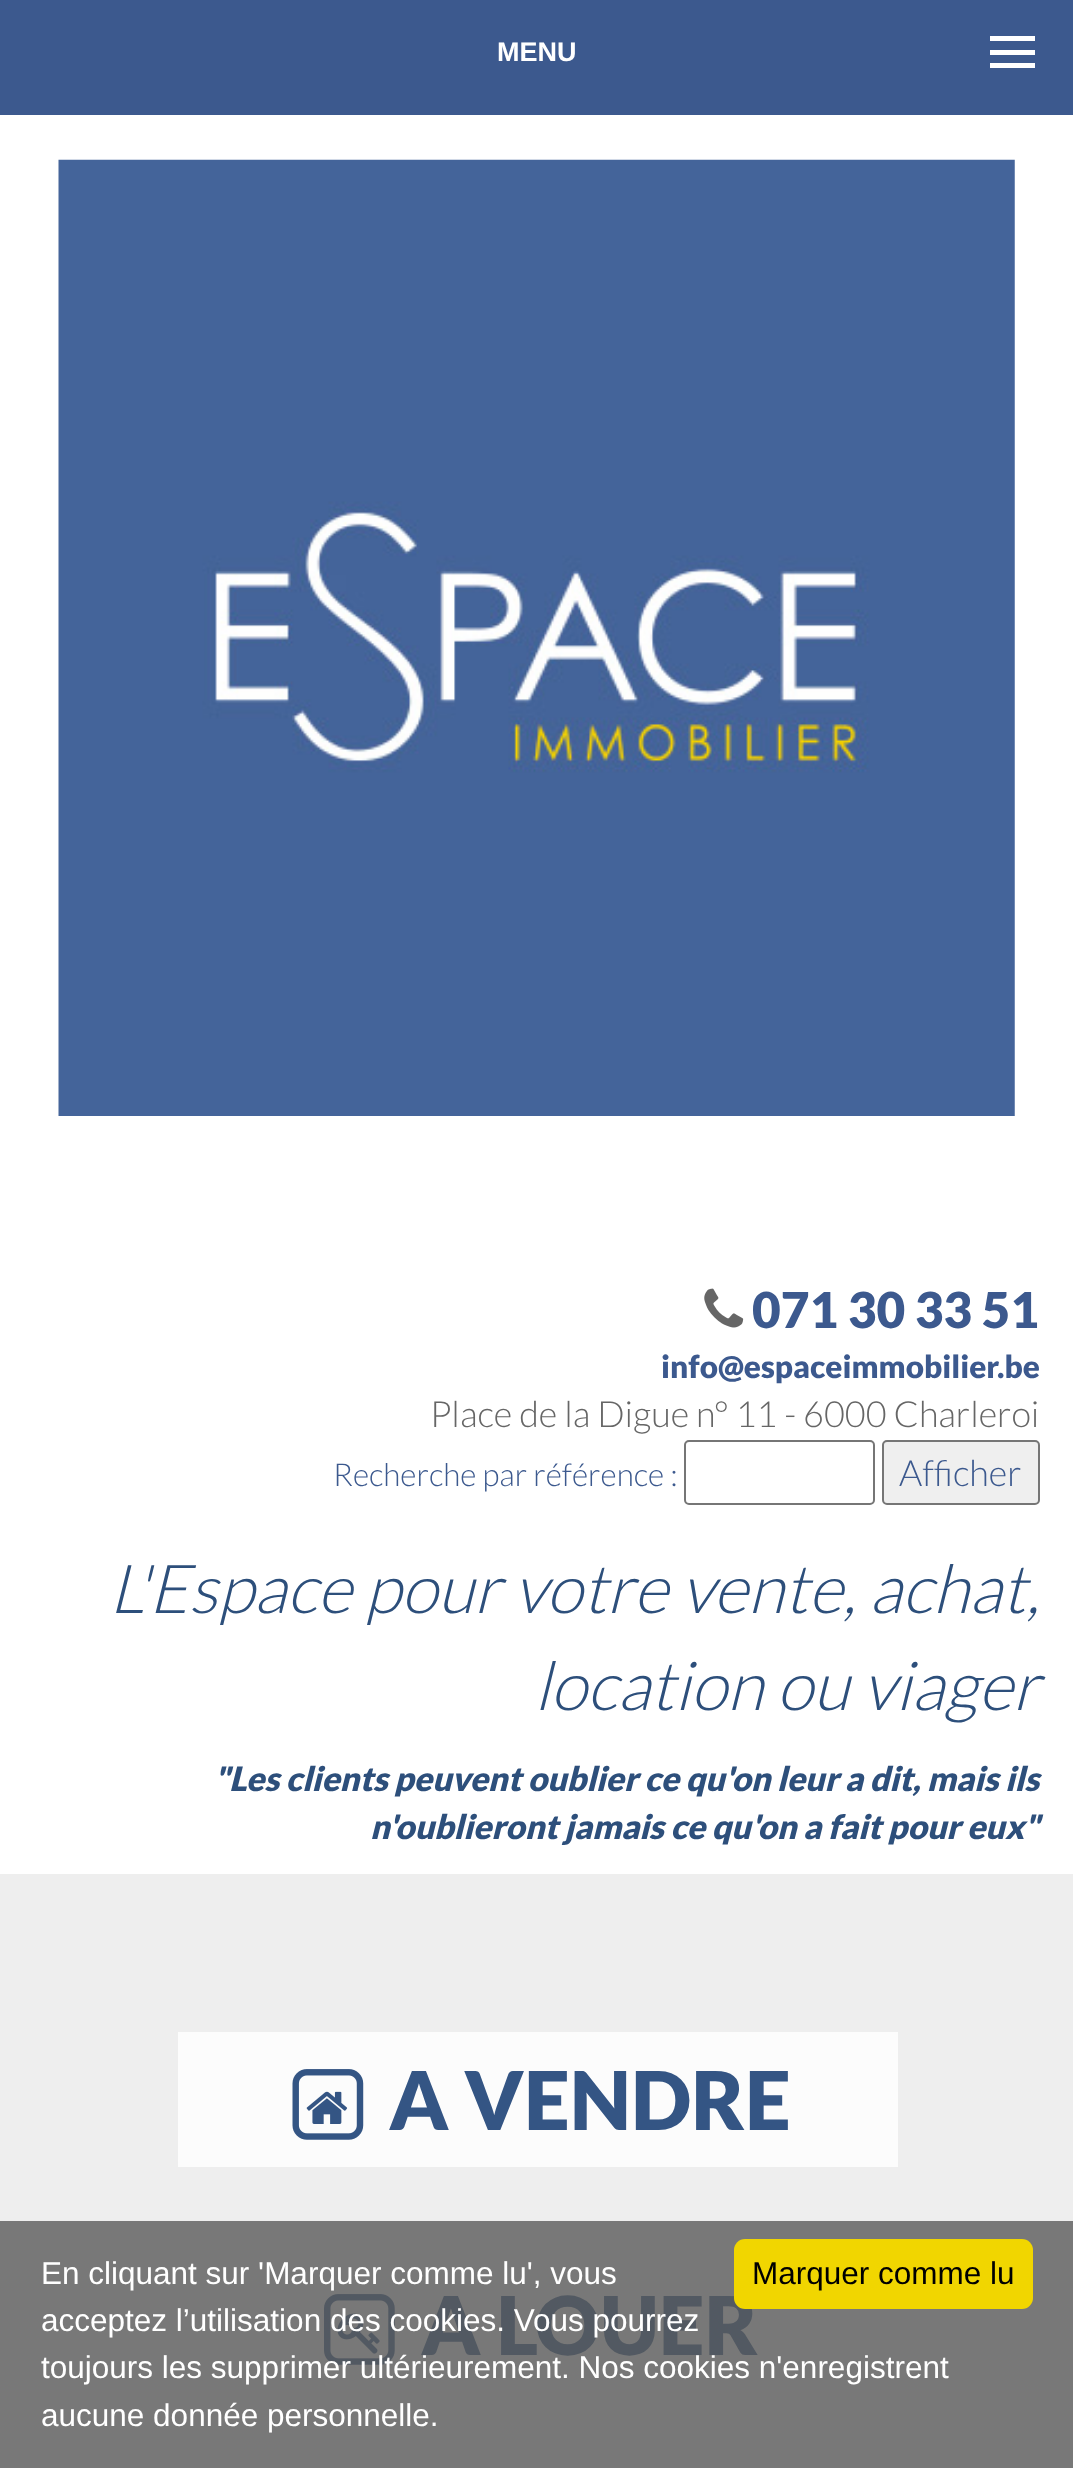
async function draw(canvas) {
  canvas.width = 1073
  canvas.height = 2468
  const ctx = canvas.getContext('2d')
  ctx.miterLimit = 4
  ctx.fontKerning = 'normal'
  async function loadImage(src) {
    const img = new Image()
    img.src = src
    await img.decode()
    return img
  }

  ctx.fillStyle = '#fff'
  ctx.fillRect(0, 0, 1073, 2468)
  ctx.fillStyle = '#3c598e'
  ctx.fillRect(0, 0, 1073, 115)
  ctx.fillStyle = '#fff'
  ctx.fillRect(990, 36, 45, 5)
  ctx.font = 'bold 27px Liberation Sans'
  ctx.fillText('MENU', 497, 61)
  ctx.fillRect(990, 50, 45, 5)
  ctx.fillRect(990, 63, 45, 5)
  ctx.drawImage(await loadImage('image0.png'), 58, 159, 957, 957)
  ctx.drawImage(await loadImage('image1.png'), 704, 1288, 40, 40)
  ctx.font = '900 49.5px Lato'
  ctx.fillStyle = '#3c598e'
  ctx.fillText('071 30 33 51', 752, 1328)
  ctx.font = '900 31.5px Lato'
  ctx.fillText('info@espaceimmobilier.be', 661, 1378)
  ctx.font = '300 36px Lato'
  ctx.fillStyle = '#666'
  ctx.fillText('Place de la Digue n° 11 - 6000 Charleroi', 430, 1427)
  ctx.font = '300 31.5px Lato'
  ctx.fillStyle = '#3c598e'
  ctx.fillText('Recherche par référence :', 333, 1486)
  ctx.beginPath()
  ctx.roundRect(685, 1441, 189, 63, 4)
  ctx.strokeStyle = '#767676'
  ctx.lineWidth = 2
  ctx.stroke()
  ctx.fillStyle = '#efefef'
  ctx.beginPath()
  ctx.roundRect(883, 1441, 156, 63, 4)
  ctx.fill()
  ctx.stroke()
  ctx.font = '300 36px Lato'
  ctx.fillStyle = '#3c598e'
  ctx.fillText('Afficher', 899, 1486)
  ctx.font = 'italic 300 67.5px Lato'
  ctx.fillStyle = '#2d4f7b'
  ctx.fillText('L\'Espace pour votre vente, achat,', 109, 1613)
  ctx.fillText('location ou viager', 534, 1710)
  ctx.font = 'italic 900 33.75px Lato'
  ctx.fillText('"Les clients peuvent oublier ce qu\'on leur a dit, mais ils', 214, 1791)
  ctx.fillText('n\'oublieront jamais ce qu\'on a fait pour eux"', 370, 1839)
  ctx.fillStyle = '#eee'
  ctx.fillRect(0, 1874, 1073, 347)
  ctx.fillStyle = '#787878'
  ctx.fillRect(0, 2221, 1073, 247)
  ctx.fillStyle = '#fcfcfc'
  ctx.fillRect(178, 2032, 720, 135)
  ctx.drawImage(await loadImage('image2.png'), 292, 2069, 72, 71)
  ctx.drawImage(await loadImage('image3.png'), 306, 2091, 42, 33)
  ctx.font = '900 81px Lato'
  ctx.fillStyle = '#345584'
  ctx.fillText('A VENDRE', 389, 2130)
  ctx.drawImage(await loadImage('image4.png'), 324, 2294, 71, 71)
  ctx.drawImage(await loadImage('image5.png'), 337, 2313, 43, 41)
  ctx.fillStyle = '#525962'
  ctx.fillText('A LOUER', 421, 2355)
  ctx.font = '31.5px Liberation Sans'
  ctx.fillStyle = '#fff'
  ctx.fillText('En cliquant sur \'Marquer comme lu\', vous', 41, 2284)
  ctx.fillText('acceptez l’utilisation des cookies. Vous pourrez', 41, 2331)
  ctx.fillText('toujours les supprimer ultérieurement. Nos cookies n\'enregistrent', 41, 2378)
  ctx.fillText('aucune donnée personnelle.', 41, 2426)
  ctx.fillStyle = '#f1d600'
  ctx.beginPath()
  ctx.roundRect(734, 2239, 299, 70, 11)
  ctx.fill()
  ctx.fillStyle = '#000'
  ctx.fillText('Marquer comme lu', 752, 2284)
}

draw(document.querySelector('canvas'))
